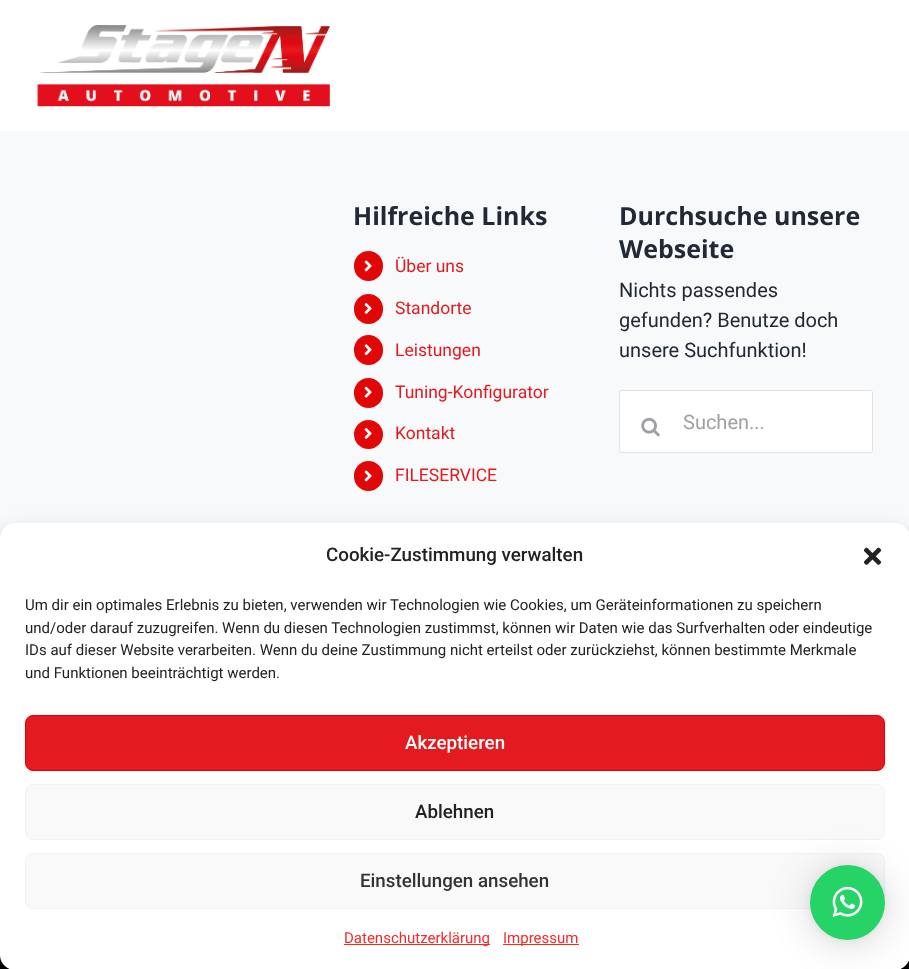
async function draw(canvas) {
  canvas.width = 909
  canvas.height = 969
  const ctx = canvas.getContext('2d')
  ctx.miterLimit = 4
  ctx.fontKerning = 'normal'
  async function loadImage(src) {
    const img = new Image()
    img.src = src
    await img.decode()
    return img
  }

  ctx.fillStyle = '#f8f9fa'
  ctx.fillRect(0, 0, 909, 969)
  ctx.fillStyle = '#fff'
  ctx.fillRect(0, 0, 909, 131)
  ctx.drawImage(await loadImage('image0.png'), 37, 25, 293, 82)
  ctx.font = 'bold 25px Open Sans'
  ctx.fillStyle = '#212934'
  ctx.fillText('Hilfreiche Links', 353, 225)
  ctx.fillStyle = '#e10707'
  ctx.beginPath()
  ctx.roundRect(354, 251, 29, 30, 14.5)
  ctx.fill()
  ctx.drawImage(await loadImage('image1.png'), 364, 260, 8, 12)
  ctx.font = '17.5px Roboto'
  ctx.fillStyle = '#e31a1f'
  ctx.fillText('Über uns', 395, 272)
  ctx.fillStyle = '#e10707'
  ctx.beginPath()
  ctx.roundRect(354, 294, 29, 30, 14.5)
  ctx.fill()
  ctx.drawImage(await loadImage('image2.png'), 364, 303, 8, 11)
  ctx.fillStyle = '#e31a1f'
  ctx.fillText('Standorte', 395, 314)
  ctx.fillStyle = '#e10707'
  ctx.beginPath()
  ctx.roundRect(354, 335, 29, 30, 14.5)
  ctx.fill()
  ctx.drawImage(await loadImage('image3.png'), 364, 344, 8, 12)
  ctx.fillStyle = '#e31a1f'
  ctx.fillText('Leistungen', 395, 356)
  ctx.fillStyle = '#e10707'
  ctx.beginPath()
  ctx.roundRect(354, 378, 29, 30, 14.5)
  ctx.fill()
  ctx.drawImage(await loadImage('image4.png'), 364, 386, 8, 12)
  ctx.fillStyle = '#e31a1f'
  ctx.fillText('Tuning-Konfigurator', 395, 398)
  ctx.fillStyle = '#e10707'
  ctx.beginPath()
  ctx.arc(368.5, 434.5, 14.5, 0, 2 * Math.PI)
  ctx.fill()
  ctx.drawImage(await loadImage('image2.png'), 364, 428, 8, 11)
  ctx.fillStyle = '#e31a1f'
  ctx.fillText('Kontakt', 395, 439)
  ctx.fillStyle = '#e10707'
  ctx.beginPath()
  ctx.roundRect(354, 461, 29, 30, 14.5)
  ctx.fill()
  ctx.drawImage(await loadImage('image1.png'), 364, 470, 8, 12)
  ctx.fillStyle = '#e31a1f'
  ctx.fillText('FILESERVICE', 395, 481)
  ctx.font = 'bold 25px Open Sans'
  ctx.fillStyle = '#212934'
  ctx.fillText('Durchsuche unsere', 619, 225)
  ctx.fillText('Webseite', 619, 258)
  ctx.font = '20px Roboto'
  ctx.fillText('Nichts passendes', 619, 297)
  ctx.fillText('gefunden? Benutze doch', 619, 327)
  ctx.fillText('unsere Suchfunktion!', 619, 357)
  ctx.fillStyle = '#fff'
  ctx.beginPath()
  ctx.roundRect(619.5, 390.5, 253, 62, 2)
  ctx.fill()
  ctx.strokeStyle = '#e2e2e2'
  ctx.stroke()
  ctx.drawImage(await loadImage('image5.png'), 641, 417, 19, 20)
  ctx.fillStyle = '#9ea0a4'
  ctx.fillText('Suchen...', 683, 429)
  ctx.fillStyle = '#000'
  ctx.fillRect(0, 955, 909, 14)
  ctx.fillStyle = '#0000003b'
  ctx.filter = 'blur(4px)'
  ctx.beginPath()
  ctx.roundRect(0, 530, 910, 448, 15)
  ctx.fill()
  ctx.filter = 'none'
  ctx.fillStyle = '#00000030'
  ctx.filter = 'blur(12.5px)'
  ctx.beginPath()
  ctx.roundRect(0, 535, 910, 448, 15)
  ctx.fill()
  ctx.filter = 'none'
  ctx.fillStyle = '#fff'
  ctx.beginPath()
  ctx.roundRect(0, 523, 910, 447, 15)
  ctx.fill()
  ctx.font = '500 18.75px Roboto'
  ctx.fillStyle = '#222'
  ctx.fillText('Cookie-Zustimmung verwalten', 326, 561)
  ctx.drawImage(await loadImage('image6.png'), 863, 547, 19, 18)
  ctx.font = '15px Roboto'
  ctx.fillText('Um dir ein optimales Erlebnis zu bieten, verwenden wir Technologien wie Cookies, um Geräteinformationen zu speichern', 25, 610)
  ctx.fillText('und/oder darauf zuzugreifen. Wenn du diesen Technologien zustimmst, können wir Daten wie das Surfverhalten oder eindeutige', 25, 633)
  ctx.fillText('IDs auf dieser Website verarbeiten. Wenn du deine Zustimmung nicht erteilst oder zurückziehst, können bestimmte Merkmale', 25, 655)
  ctx.fillText('und Funktionen beeinträchtigt werden.', 25, 678)
  ctx.fillStyle = '#e31a1f'
  ctx.beginPath()
  ctx.roundRect(25.5, 715.5, 859, 55, 7.5)
  ctx.fill()
  ctx.strokeStyle = '#e20003'
  ctx.stroke()
  ctx.font = '500 18.75px Roboto'
  ctx.fillStyle = '#fff'
  ctx.fillText('Akzeptieren', 405, 749)
  ctx.fillStyle = '#f9f9f9'
  ctx.beginPath()
  ctx.roundRect(25.5, 784.5, 859, 55, 7.5)
  ctx.fill()
  ctx.strokeStyle = '#f2f2f2'
  ctx.stroke()
  ctx.fillStyle = '#222'
  ctx.fillText('Ablehnen', 415, 818)
  ctx.fillStyle = '#f9f9f9'
  ctx.beginPath()
  ctx.roundRect(25.5, 853.5, 859, 55, 7.5)
  ctx.fill()
  ctx.stroke()
  ctx.fillStyle = '#333'
  ctx.fillText('Einstellungen ansehen', 360, 887)
  ctx.fillStyle = '#fc2828'
  ctx.fillRect(344, 944, 146, 1)
  ctx.font = '15px Roboto'
  ctx.fillText('Datenschutzerklärung', 344, 943)
  ctx.fillRect(503, 944, 76, 1)
  ctx.fillText('Impressum', 503, 943)
  ctx.fillStyle = '#00000029'
  ctx.filter = 'blur(20px)'
  ctx.beginPath()
  ctx.roundRect(810, 868, 75, 75, 37.5)
  ctx.fill()
  ctx.filter = 'none'
  ctx.fillStyle = '#0000000f'
  ctx.filter = 'blur(4px)'
  ctx.beginPath()
  ctx.roundRect(810, 866, 75, 75, 37.5)
  ctx.fill()
  ctx.filter = 'none'
  ctx.fillStyle = '#25d366'
  ctx.beginPath()
  ctx.arc(847.5, 902.5, 37.5, 0, 2 * Math.PI)
  ctx.fill()
  ctx.drawImage(await loadImage('image7.png'), 832, 886, 31, 31)
}

draw(document.querySelector('canvas'))
